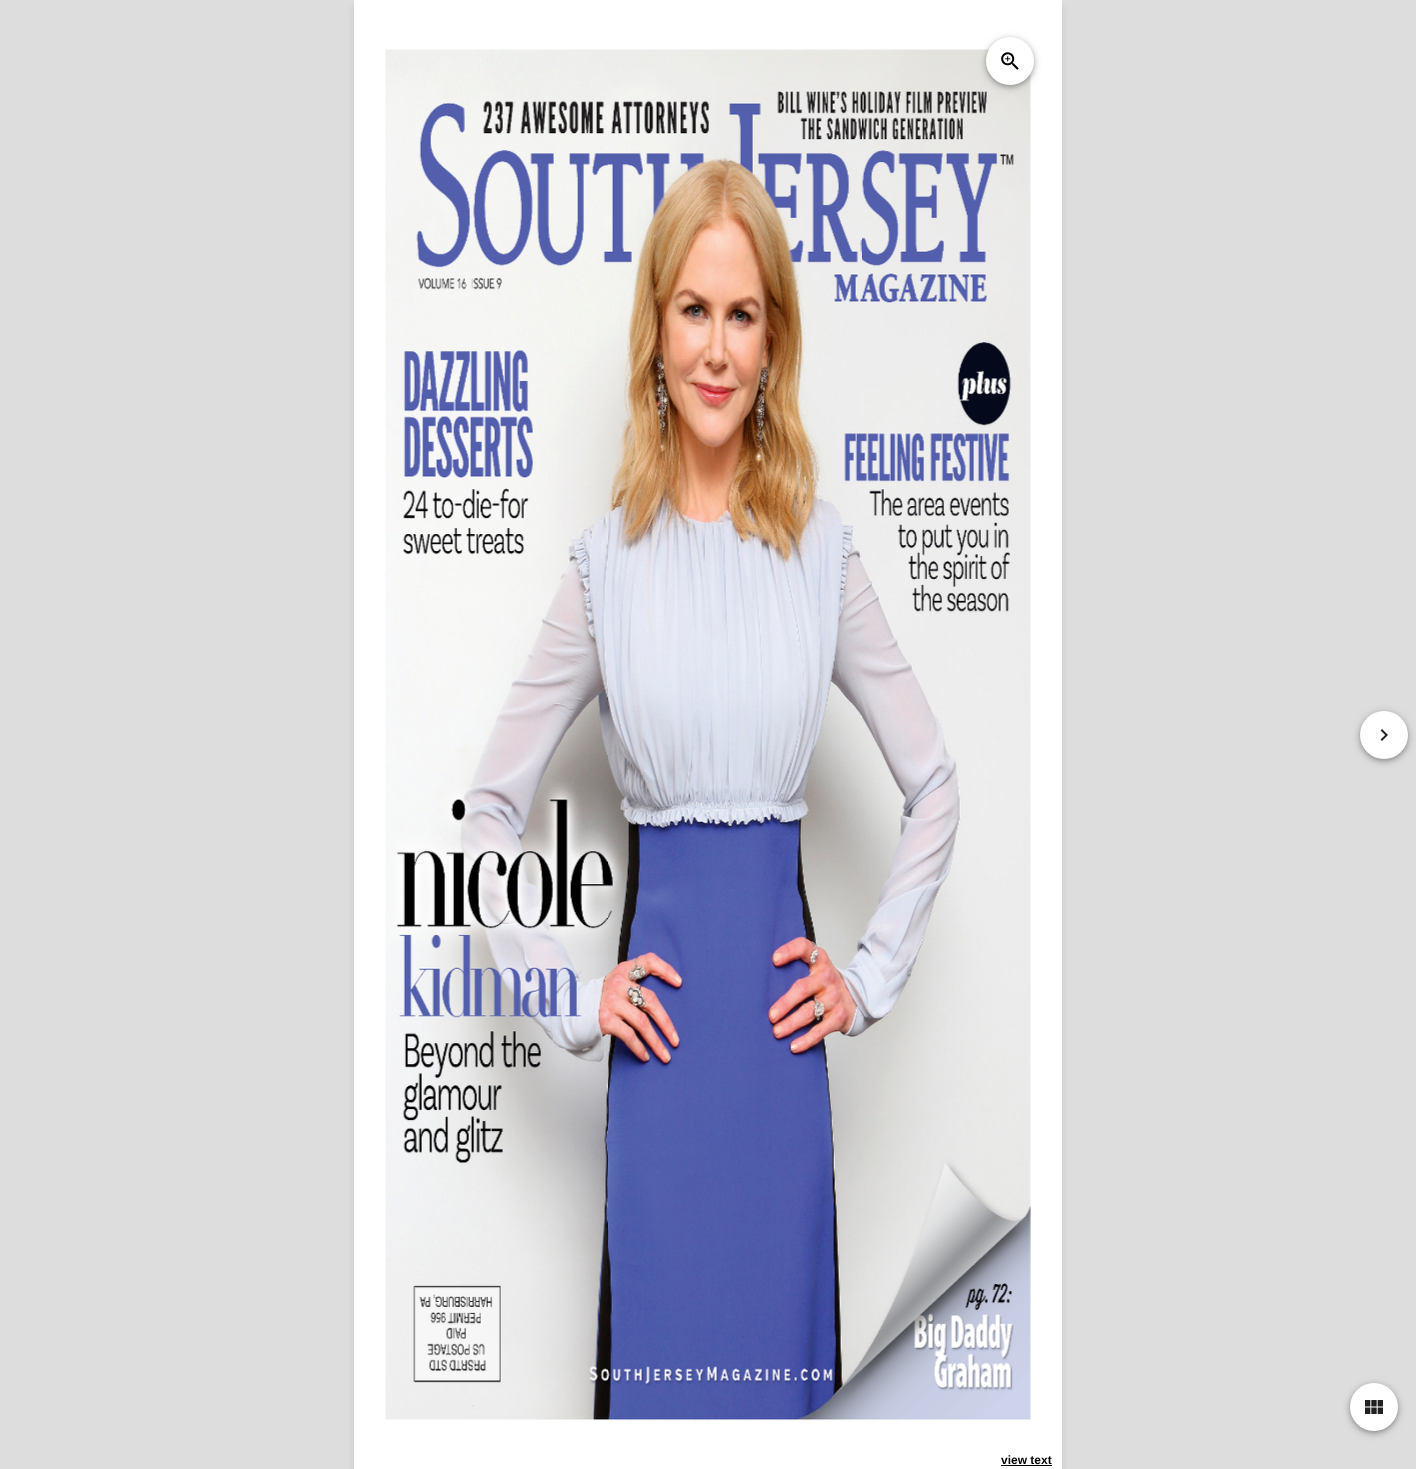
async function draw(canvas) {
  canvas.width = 1416
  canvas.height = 1469
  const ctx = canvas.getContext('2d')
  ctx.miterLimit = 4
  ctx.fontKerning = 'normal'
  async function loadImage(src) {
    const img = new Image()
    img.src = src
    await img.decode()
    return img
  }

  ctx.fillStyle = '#ddd'
  ctx.fillRect(0, 0, 1416, 1469)
  ctx.fillStyle = '#00000029'
  ctx.filter = 'blur(5px)'
  ctx.beginPath()
  ctx.roundRect(1360, 713, 48, 48, 24)
  ctx.fill()
  ctx.filter = 'none'
  ctx.fillStyle = '#00000042'
  ctx.filter = 'blur(2.5px)'
  ctx.beginPath()
  ctx.roundRect(1360, 713, 48, 48, 24)
  ctx.fill()
  ctx.filter = 'none'
  ctx.fillStyle = '#fff'
  ctx.beginPath()
  ctx.arc(1384, 735, 24, 0, 2 * Math.PI)
  ctx.fill()
  ctx.drawImage(await loadImage('image0.png'), 1380, 729, 8, 12)
  ctx.fillStyle = '#00000029'
  ctx.filter = 'blur(5px)'
  ctx.beginPath()
  ctx.roundRect(1350, 1385, 48, 48, 24)
  ctx.fill()
  ctx.filter = 'none'
  ctx.fillStyle = '#00000042'
  ctx.filter = 'blur(2.5px)'
  ctx.beginPath()
  ctx.roundRect(1350, 1385, 48, 48, 24)
  ctx.fill()
  ctx.filter = 'none'
  ctx.fillStyle = '#fff'
  ctx.beginPath()
  ctx.arc(1374, 1407, 24, 0, 2 * Math.PI)
  ctx.fill()
  ctx.drawImage(await loadImage('image1.png'), 1365, 1400, 18, 14)
  ctx.fillStyle = '#0000001a'
  ctx.filter = 'blur(3px)'
  ctx.beginPath()
  ctx.rect(354, 6, 708, 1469)
  ctx.fill()
  ctx.filter = 'none'
  ctx.fillStyle = '#fff'
  ctx.fillRect(354, 0, 708, 1469)
  ctx.drawImage(await loadImage('image3.png'), 385, 49, 646, 1372)
  ctx.fillStyle = '#00000029'
  ctx.filter = 'blur(5px)'
  ctx.beginPath()
  ctx.roundRect(986, 39, 48, 48, 24)
  ctx.fill()
  ctx.filter = 'none'
  ctx.fillStyle = '#00000042'
  ctx.filter = 'blur(2.5px)'
  ctx.beginPath()
  ctx.roundRect(986, 39, 48, 48, 24)
  ctx.fill()
  ctx.filter = 'none'
  ctx.fillStyle = '#fff'
  ctx.beginPath()
  ctx.arc(1010, 61, 24, 0, 2 * Math.PI)
  ctx.fill()
  ctx.drawImage(await loadImage('image2.png'), 1001, 52, 18, 18)
  ctx.font = 'bold 12px Liberation Sans'
  ctx.fillStyle = '#000'
  ctx.fillText('view text', 1001, 1464)
  ctx.fillRect(1001, 1465, 51, 1)
}

draw(document.querySelector('canvas'))
